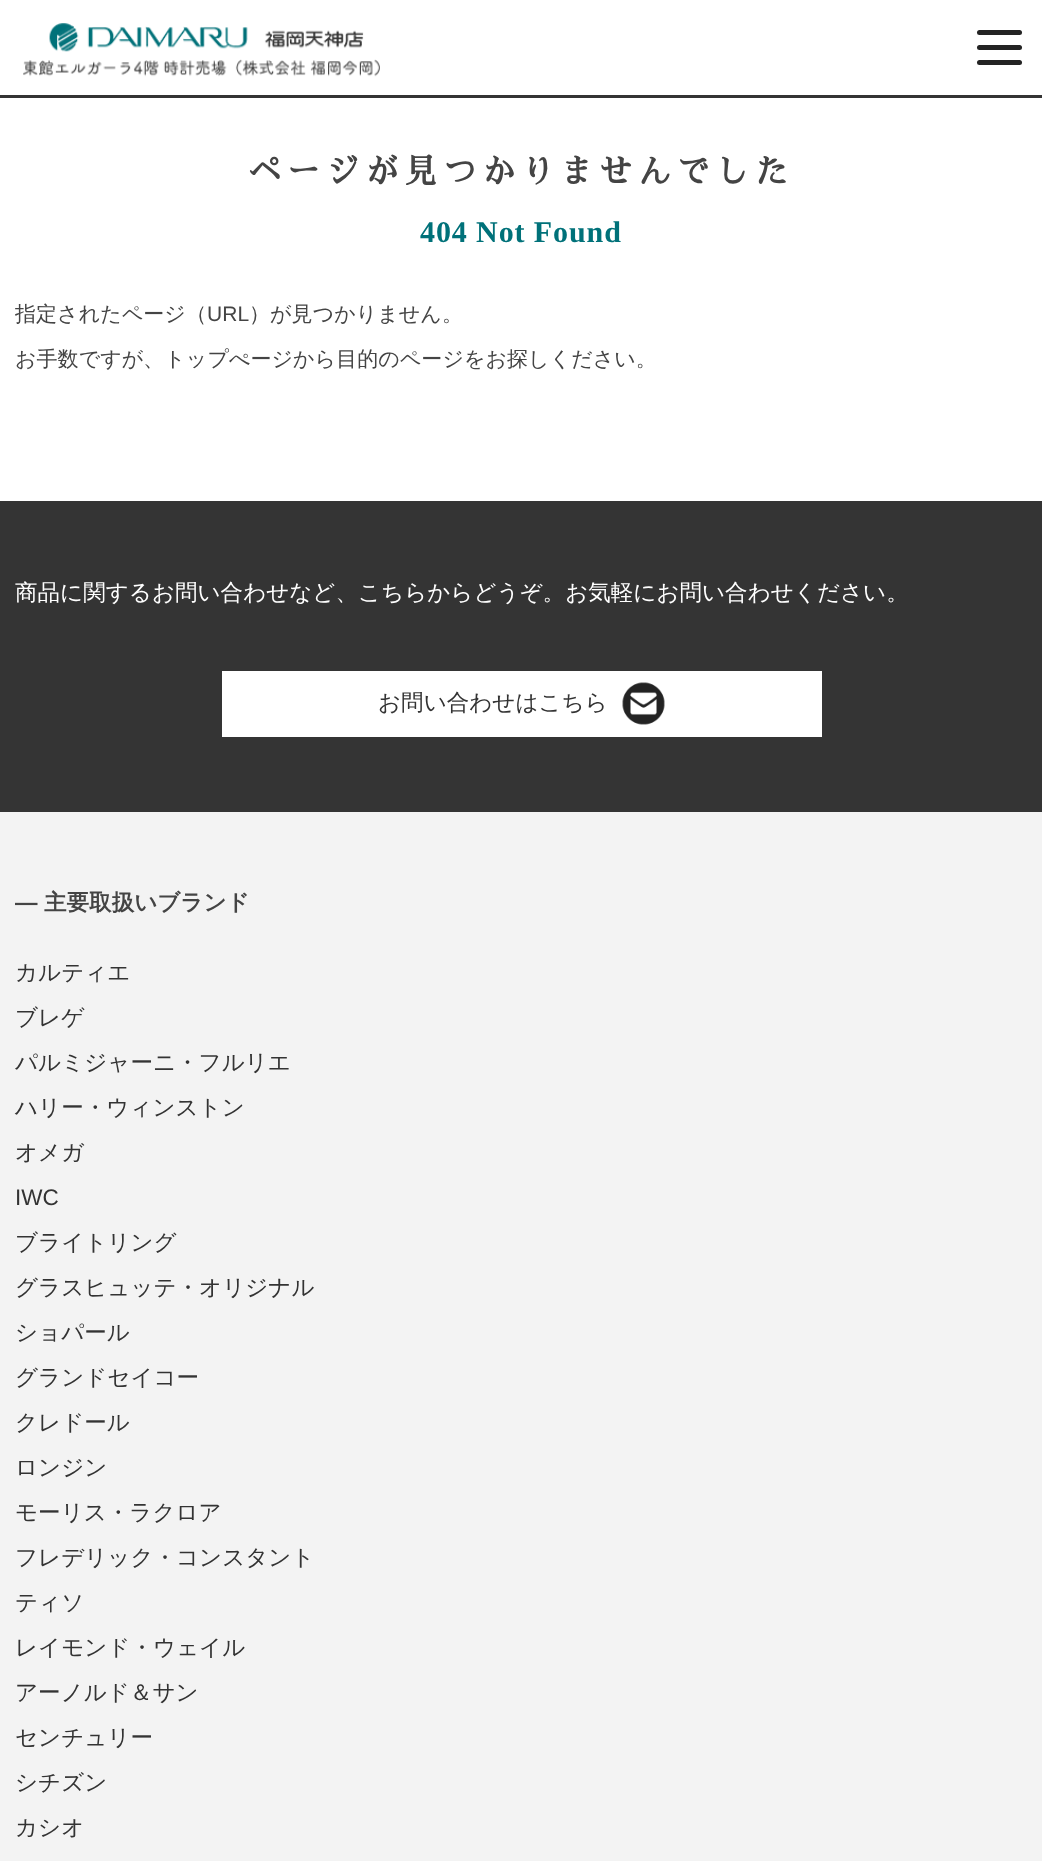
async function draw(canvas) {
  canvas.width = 1042
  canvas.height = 1861
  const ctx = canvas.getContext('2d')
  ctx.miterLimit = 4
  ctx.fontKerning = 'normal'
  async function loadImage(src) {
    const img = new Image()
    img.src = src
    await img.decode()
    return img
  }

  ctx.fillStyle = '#fff'
  ctx.fillRect(0, 0, 1042, 1861)
  ctx.fillStyle = '#343434'
  ctx.fillRect(0, 95, 1042, 3)
  ctx.drawImage(await loadImage('image0.png'), 23, 23, 357, 54)
  ctx.fillStyle = '#232323'
  ctx.beginPath()
  ctx.roundRect(977, 30, 45, 5, 2.5)
  ctx.fill()
  ctx.beginPath()
  ctx.roundRect(977, 45, 45, 5, 2.5)
  ctx.fill()
  ctx.beginPath()
  ctx.roundRect(977, 60, 45, 5, 2.5)
  ctx.fill()
  ctx.letterSpacing = '6px'
  ctx.font = 'bold 33px Sawarabi Mincho'
  ctx.fillStyle = '#444'
  ctx.fillText('ページが見つかりませんでした', 248, 183)
  ctx.letterSpacing = '0.9px'
  ctx.font = 'bold 30px Liberation Serif'
  ctx.fillStyle = '#007179'
  ctx.fillText('404 Not Found', 420, 242)
  ctx.letterSpacing = '0.05px'
  ctx.font = '500 21px WenQuanYi Zen Hei'
  ctx.fillStyle = '#444'
  ctx.fillText('指定されたページ（', 15, 321)
  ctx.font = '21px Liberation Sans'
  ctx.fillText('URL', 207, 321)
  ctx.font = '500 21px WenQuanYi Zen Hei'
  ctx.fillText('）が見つかりません。', 249, 321)
  ctx.fillText('お手数ですが、トップぺージから目的のページをお探しください。', 15, 366)
  ctx.fillStyle = '#343434'
  ctx.fillRect(0, 501, 1042, 311)
  ctx.font = '500 22.5px WenQuanYi Zen Hei'
  ctx.fillStyle = '#fff'
  ctx.fillText('商品に関するお問い合わせなど、こちらからどうぞ。お気軽にお問い合わせください。', 15, 600)
  ctx.fillRect(222, 671, 600, 66)
  ctx.fillStyle = '#333'
  ctx.fillText('お問い合わせはこちら', 378, 710)
  ctx.drawImage(await loadImage('image1.png'), 622, 682, 43, 43)
  ctx.fillStyle = '#f3f3f3'
  ctx.fillRect(0, 812, 1042, 1049)
  ctx.font = 'bold 22.5px Liberation Sans'
  ctx.fillStyle = '#444'
  ctx.fillText('―', 15, 910)
  ctx.font = 'bold 22.5px WenQuanYi Zen Hei'
  ctx.fillText('主要取扱いブランド', 44, 910)
  ctx.font = '500 22.5px WenQuanYi Zen Hei'
  ctx.fillStyle = '#333'
  ctx.fillText('カルティエ', 15, 980)
  ctx.fillText('ブレゲ', 15, 1025)
  ctx.fillText('パルミジャーニ・フルリエ', 15, 1070)
  ctx.fillText('ハリー・ウィンストン', 15, 1115)
  ctx.fillText('オメガ', 15, 1160)
  ctx.font = '22.5px Liberation Sans'
  ctx.fillText('IWC', 15, 1205)
  ctx.font = '500 22.5px WenQuanYi Zen Hei'
  ctx.fillText('ブライトリング', 15, 1250)
  ctx.fillText('グラスヒュッテ・オリジナル', 15, 1295)
  ctx.fillText('ショパール', 15, 1340)
  ctx.fillText('グランドセイコー', 15, 1385)
  ctx.fillText('クレドール', 15, 1430)
  ctx.fillText('ロンジン', 15, 1475)
  ctx.fillText('モーリス・ラクロア', 15, 1520)
  ctx.fillText('フレデリック・コンスタント', 15, 1565)
  ctx.fillText('ティソ', 15, 1610)
  ctx.fillText('レイモンド・ウェイル', 15, 1655)
  ctx.fillText('アーノルド＆サン', 15, 1700)
  ctx.fillText('センチュリー', 15, 1745)
  ctx.fillText('シチズン', 15, 1790)
  ctx.fillText('カシオ', 15, 1835)
}

draw(document.querySelector('canvas'))
